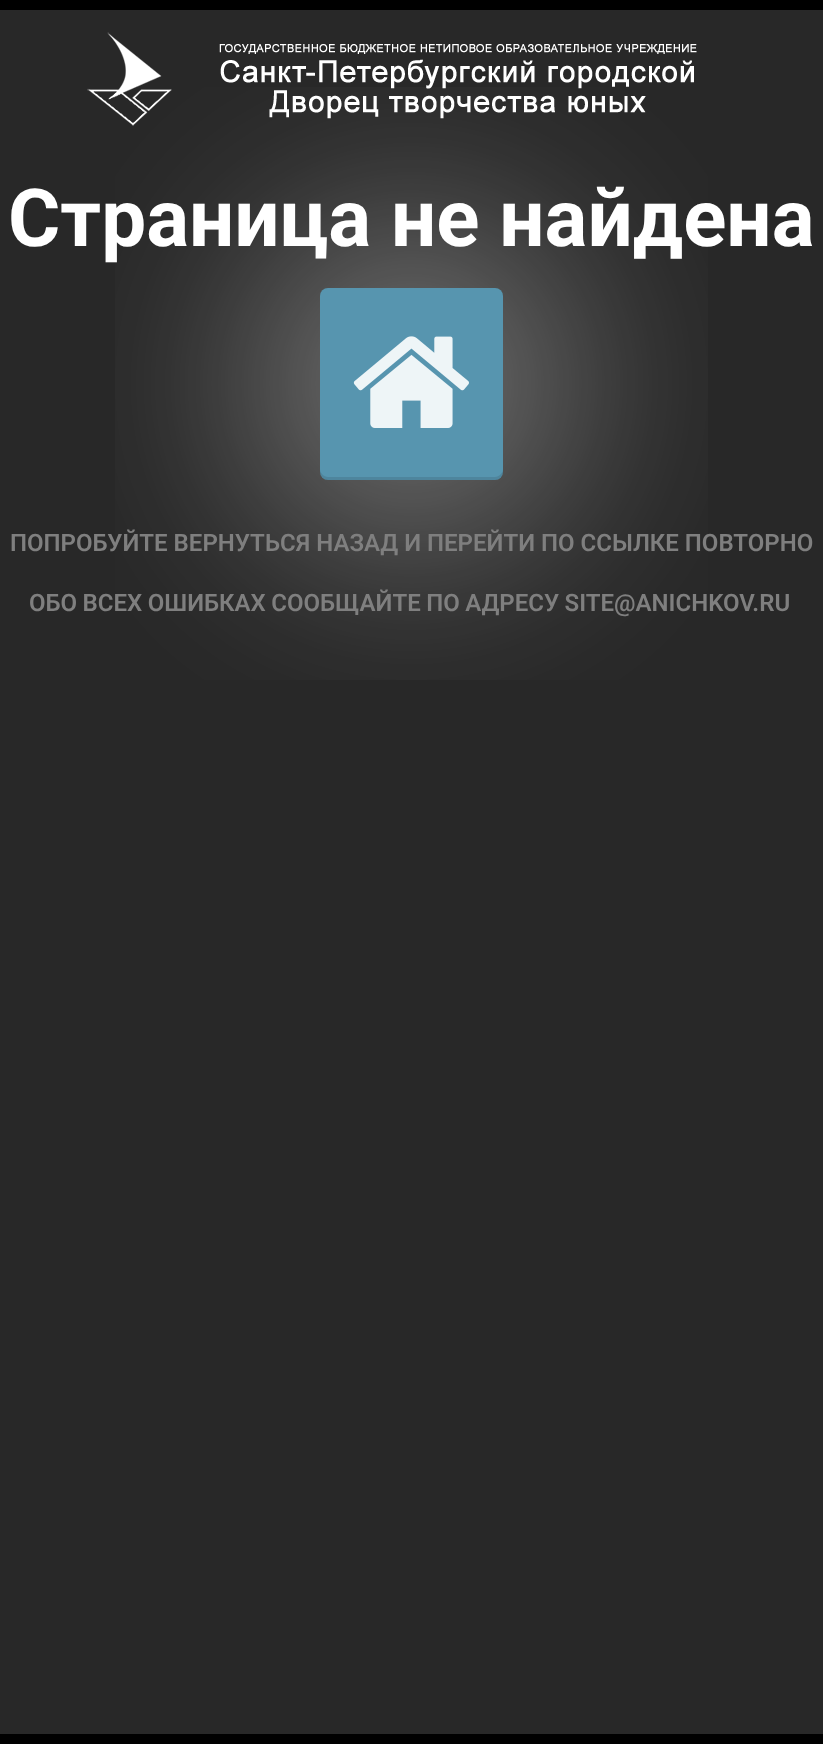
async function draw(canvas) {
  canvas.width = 823
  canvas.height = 1744
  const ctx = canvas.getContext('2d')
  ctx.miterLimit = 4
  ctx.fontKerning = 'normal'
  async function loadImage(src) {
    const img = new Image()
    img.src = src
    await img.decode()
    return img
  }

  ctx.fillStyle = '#282828'
  ctx.fillRect(0, 0, 823, 1744)
  ctx.drawImage(await loadImage('image0.png'), 115, 87, 593, 593)
  ctx.fillStyle = '#000'
  ctx.fillRect(0, 1734, 823, 10)
  ctx.fillRect(0, 0, 823, 10)
  ctx.drawImage(await loadImage('image1.png'), 87, 32, 610, 94)
  ctx.font = 'bold 80px Roboto'
  ctx.fillStyle = '#fff'
  ctx.fillText('Страница не найдена', 8, 246)
  ctx.fillStyle = '#5795af'
  ctx.beginPath()
  ctx.roundRect(320, 288, 183, 192, 8)
  ctx.fill()
  ctx.fillStyle = '#0000001a'
  ctx.beginPath()
  ctx.moveTo(320, 469)
  ctx.lineTo(320, 472)
  ctx.bezierCurveTo(320, 476, 324, 480, 328, 480)
  ctx.lineTo(495, 480)
  ctx.bezierCurveTo(499, 480, 503, 476, 503, 472)
  ctx.lineTo(503, 469)
  ctx.bezierCurveTo(503, 473, 499, 477, 495, 477)
  ctx.lineTo(328, 477)
  ctx.bezierCurveTo(324, 477, 320, 473, 320, 469)
  ctx.closePath()
  ctx.fill()
  ctx.drawImage(await loadImage('image2.png'), 353, 336, 116, 92)
  ctx.font = '600 24px Roboto'
  ctx.fillStyle = '#7f7f7f'
  ctx.fillText('ПОПРОБУЙТЕ ВЕРНУТЬСЯ НАЗАД И ПЕРЕЙТИ ПО ССЫЛКЕ ПОВТОРНО', 10, 551)
  ctx.wordSpacing = '-0.5px'
  ctx.fillText('ОБО ВСЕХ ОШИБКАХ СООБЩАЙТЕ ПО АДРЕСУ SITE@ANICHKOV.RU', 29, 611)
}

draw(document.querySelector('canvas'))
